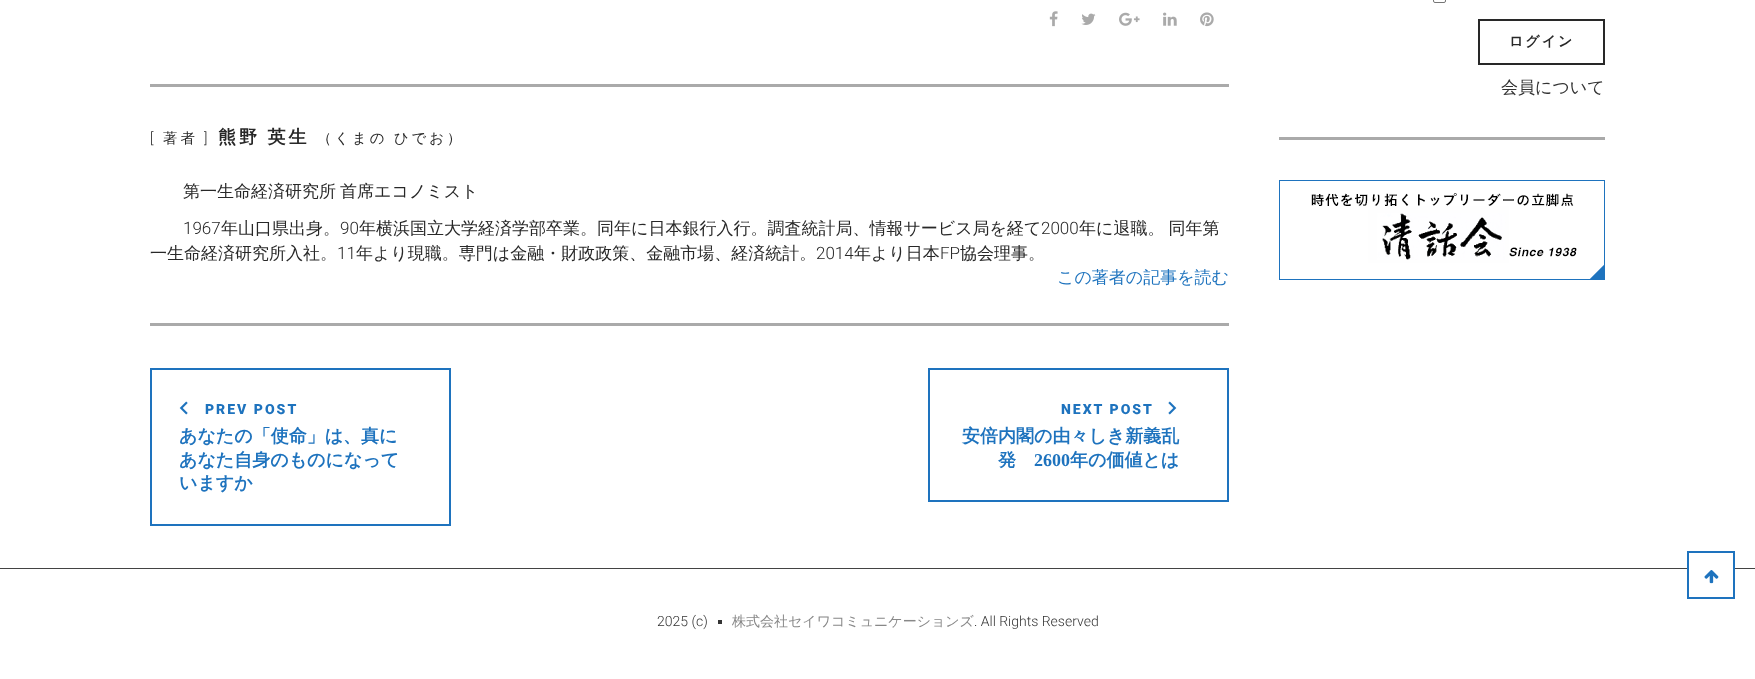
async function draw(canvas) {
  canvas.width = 1755
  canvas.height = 679
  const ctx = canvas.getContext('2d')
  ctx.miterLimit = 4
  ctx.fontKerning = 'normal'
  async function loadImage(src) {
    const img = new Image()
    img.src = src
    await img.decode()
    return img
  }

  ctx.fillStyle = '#fff'
  ctx.fillRect(0, 0, 1755, 679)
  ctx.beginPath()
  ctx.roundRect(1433.5, -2.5, 12, 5, 1.5)
  ctx.strokeStyle = '#767676'
  ctx.stroke()
  ctx.strokeStyle = '#282828'
  ctx.lineWidth = 2
  ctx.strokeRect(1479, 20, 125, 44)
  ctx.letterSpacing = '2px'
  ctx.font = 'bold 14px WenQuanYi Zen Hei'
  ctx.fillStyle = '#282828'
  ctx.fillText('ログイン', 1509, 46)
  ctx.letterSpacing = '0px'
  ctx.font = '500 17px WenQuanYi Zen Hei'
  ctx.fillStyle = '#333'
  ctx.fillText('会員について', 1501, 93)
  ctx.fillStyle = '#aaa'
  ctx.fillRect(1279, 137, 326, 3)
  ctx.drawImage(await loadImage('image0.png'), 1279, 180, 326, 100)
  ctx.drawImage(await loadImage('image1.png'), 1049, 11, 9, 16)
  ctx.drawImage(await loadImage('image2.png'), 1081, 13, 15, 12)
  ctx.drawImage(await loadImage('image3.png'), 1119, 12, 21, 14)
  ctx.drawImage(await loadImage('image4.png'), 1163, 12, 14, 14)
  ctx.drawImage(await loadImage('image5.png'), 1200, 12, 14, 15)
  ctx.fillRect(150, 84, 1079, 3)
  ctx.letterSpacing = '3px'
  ctx.font = '300 14.4px Roboto'
  ctx.fillStyle = '#282828'
  ctx.fillText('[', 150, 143)
  ctx.font = '500 14.4px WenQuanYi Zen Hei'
  ctx.fillText('著者', 163, 143)
  ctx.font = '300 14.4px Roboto'
  ctx.fillText(']', 204, 143)
  ctx.wordSpacing = '-1px'
  ctx.font = 'bold 18px WenQuanYi Zen Hei'
  ctx.fillText('熊野 英生', 218, 143)
  ctx.font = '500 14.4px WenQuanYi Zen Hei'
  ctx.fillText('（くまの ひでお）', 317, 143)
  ctx.letterSpacing = '0px'
  ctx.font = '500 17px WenQuanYi Zen Hei'
  ctx.fillText('第一生命経済研究所 首席エコノミスト', 183, 197)
  ctx.wordSpacing = '0px'
  ctx.font = '300 17px Roboto'
  ctx.fillText('1967', 183, 234)
  ctx.font = '500 17px WenQuanYi Zen Hei'
  ctx.fillText('年山口県出身。', 221, 234)
  ctx.font = '300 17px Roboto'
  ctx.fillText('90', 340, 234)
  ctx.font = '500 17px WenQuanYi Zen Hei'
  ctx.fillText('年横浜国立大学経済学部卒業。同年に日本銀行入行。調査統計局、情報サービス局を経て', 359, 234)
  ctx.font = '300 17px Roboto'
  ctx.fillText('2000', 1041, 234)
  ctx.wordSpacing = '-1px'
  ctx.font = '500 17px WenQuanYi Zen Hei'
  ctx.fillText('年に退職。 同年第', 1079, 234)
  ctx.wordSpacing = '0px'
  ctx.fillText('一生命経済研究所入社。', 150, 259)
  ctx.font = '300 17px Roboto'
  ctx.fillText('11', 337, 259)
  ctx.font = '500 17px WenQuanYi Zen Hei'
  ctx.fillText('年より現職。専門は金融・財政政策、金融市場、経済統計。', 356, 259)
  ctx.font = '300 17px Roboto'
  ctx.fillText('2014', 816, 259)
  ctx.font = '500 17px WenQuanYi Zen Hei'
  ctx.fillText('年より日本', 854, 259)
  ctx.font = '300 17px Roboto'
  ctx.fillText('FP', 940, 259)
  ctx.font = '500 17px WenQuanYi Zen Hei'
  ctx.fillText('協会理事。', 960, 259)
  ctx.fillStyle = '#1e73be'
  ctx.fillText('この著者の記事を読む', 1057, 283)
  ctx.fillStyle = '#aaa'
  ctx.fillRect(150, 323, 1079, 3)
  ctx.strokeStyle = '#1e73be'
  ctx.strokeRect(151, 369, 299, 156)
  ctx.drawImage(await loadImage('image6.png'), 179, 401, 9, 14)
  ctx.letterSpacing = '2px'
  ctx.font = '900 14px Roboto'
  ctx.fillStyle = '#1e73be'
  ctx.fillText('PREV POST', 205, 414)
  ctx.letterSpacing = '0px'
  ctx.font = 'bold 18px WenQuanYi Zen Hei'
  ctx.fillText('あなたの「使命」は、真に', 179, 442)
  ctx.fillText('あなた自身のものになって', 179, 466)
  ctx.fillText('いますか', 179, 489)
  ctx.strokeRect(929, 369, 299, 132)
  ctx.letterSpacing = '2px'
  ctx.font = '900 14px Roboto'
  ctx.fillText('NEXT POST', 1061, 414)
  ctx.drawImage(await loadImage('image7.png'), 1168, 401, 9, 14)
  ctx.letterSpacing = '0px'
  ctx.font = 'bold 18px WenQuanYi Zen Hei'
  ctx.fillText('安倍内閣の由々しき新義乱', 962, 442)
  ctx.fillText('発', 998, 466)
  ctx.font = 'bold 18px Liberation Serif'
  ctx.fillText('2600', 1034, 466)
  ctx.font = 'bold 18px WenQuanYi Zen Hei'
  ctx.fillText('年の価値とは', 1070, 466)
  ctx.fillStyle = '#434343'
  ctx.fillRect(0, 568, 1755, 1)
  ctx.font = '300 14px Roboto'
  ctx.fillStyle = '#333'
  ctx.fillText('2025 (c)', 657, 626)
  ctx.fillStyle = '#353535'
  ctx.fillRect(718, 620, 4, 4)
  ctx.font = '500 14px WenQuanYi Zen Hei'
  ctx.fillStyle = '#888'
  ctx.fillText('株式会社セイワコミュニケーションズ', 732, 626)
  ctx.font = '300 14px Roboto'
  ctx.fillStyle = '#333'
  ctx.fillText('. All Rights Reserved', 974, 626)
  ctx.fillStyle = '#fff'
  ctx.fillRect(1689, 568, 44, 1)
  ctx.strokeRect(1688, 552, 46, 46)
  ctx.drawImage(await loadImage('image8.png'), 1704, 570, 15, 14)
}

draw(document.querySelector('canvas'))
